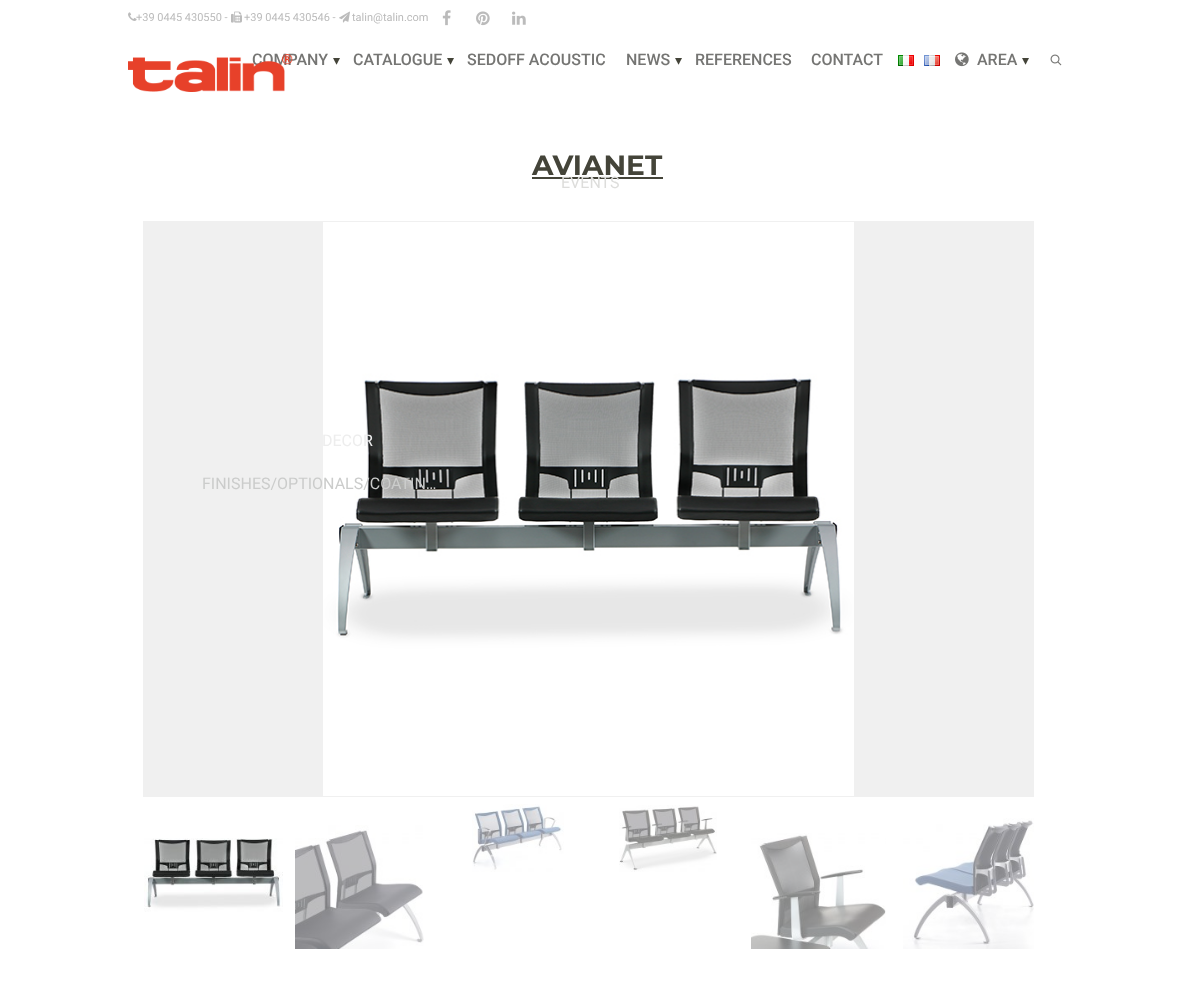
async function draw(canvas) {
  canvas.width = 1195
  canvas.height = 1001
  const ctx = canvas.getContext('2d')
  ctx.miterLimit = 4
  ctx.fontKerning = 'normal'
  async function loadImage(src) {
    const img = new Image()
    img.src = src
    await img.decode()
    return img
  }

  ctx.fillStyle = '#fff'
  ctx.fillRect(0, 0, 1195, 1001)
  ctx.drawImage(await loadImage('image0.png'), 128, 12, 9, 9)
  ctx.font = '11px Roboto'
  ctx.fillStyle = '#bbb'
  ctx.fillText('+39 0445 430550 -', 136, 21)
  ctx.drawImage(await loadImage('image1.png'), 231, 11, 11, 12)
  ctx.fillText('+39 0445 430546 -', 244, 21)
  ctx.drawImage(await loadImage('image2.png'), 339, 11, 11, 12)
  ctx.fillText('talin@talin.com', 352, 21)
  ctx.drawImage(await loadImage('image3.png'), 442, 10, 9, 16)
  ctx.drawImage(await loadImage('image4.png'), 476, 11, 14, 15)
  ctx.drawImage(await loadImage('image5.png'), 512, 11, 14, 14)
  ctx.font = '500 16px Roboto'
  ctx.fillStyle = '#757573'
  ctx.fillText('CATALOGUE', 353, 65)
  ctx.font = '14px DejaVu Sans'
  ctx.fillStyle = '#444439'
  ctx.fillText('▾', 447, 65)
  ctx.fillStyle = '#f0f0f0'
  ctx.fillRect(143, 221, 891, 576)
  ctx.drawImage(await loadImage('image11.png'), 323, 222, 531, 574)
  ctx.font = '16px Roboto'
  ctx.fillStyle = '#ededed'
  ctx.fillText('DECOR', 322, 446)
  ctx.fillStyle = '#cbcccb'
  ctx.fillText('FINISHES/OPTIONALS/COATIN…', 202, 489)
  ctx.font = '500 16px Roboto'
  ctx.fillStyle = '#757573'
  ctx.fillText('COMPANY', 252, 65)
  ctx.font = '14px DejaVu Sans'
  ctx.fillStyle = '#444439'
  ctx.fillText('▾', 333, 65)
  ctx.font = '500 16px Roboto'
  ctx.fillStyle = '#757573'
  ctx.fillText('SEDOFF ACOUSTIC', 467, 65)
  ctx.fillText('NEWS', 626, 65)
  ctx.font = '14px DejaVu Sans'
  ctx.fillStyle = '#444439'
  ctx.fillText('▾', 675, 65)
  ctx.fillRect(532, 177, 131, 2)
  ctx.font = '16px Roboto'
  ctx.fillStyle = '#dddddb'
  ctx.fillText('EVENTS', 561, 188)
  ctx.font = '500 16px Roboto'
  ctx.fillStyle = '#757573'
  ctx.fillText('REFERENCES', 695, 65)
  ctx.fillText('CONTACT', 811, 65)
  ctx.drawImage(await loadImage('image6.png'), 898, 55, 16, 11)
  ctx.drawImage(await loadImage('image7.png'), 924, 55, 16, 11)
  ctx.drawImage(await loadImage('image8.png'), 955, 52, 14, 15)
  ctx.fillText('AREA', 977, 65)
  ctx.font = '14px DejaVu Sans'
  ctx.fillStyle = '#444439'
  ctx.fillText('▾', 1022, 65)
  ctx.drawImage(await loadImage('image9.png'), 1050, 54, 12, 12)
  ctx.drawImage(await loadImage('image10.png'), 128, 54, 165, 38)
  ctx.font = '100 28px Montserrat'
  ctx.fillText('AVIANET', 532, 175)
  ctx.drawImage(await loadImage('image12.png'), 144, 838, 139, 74)
  ctx.drawImage(await loadImage('image13.png'), 295, 825, 129, 124)
  ctx.drawImage(await loadImage('image14.png'), 472, 804, 92, 68)
  ctx.drawImage(await loadImage('image15.png'), 619, 805, 98, 67)
  ctx.drawImage(await loadImage('image16.png'), 751, 833, 135, 116)
  ctx.drawImage(await loadImage('image17.png'), 903, 818, 131, 131)
}

draw(document.querySelector('canvas'))
